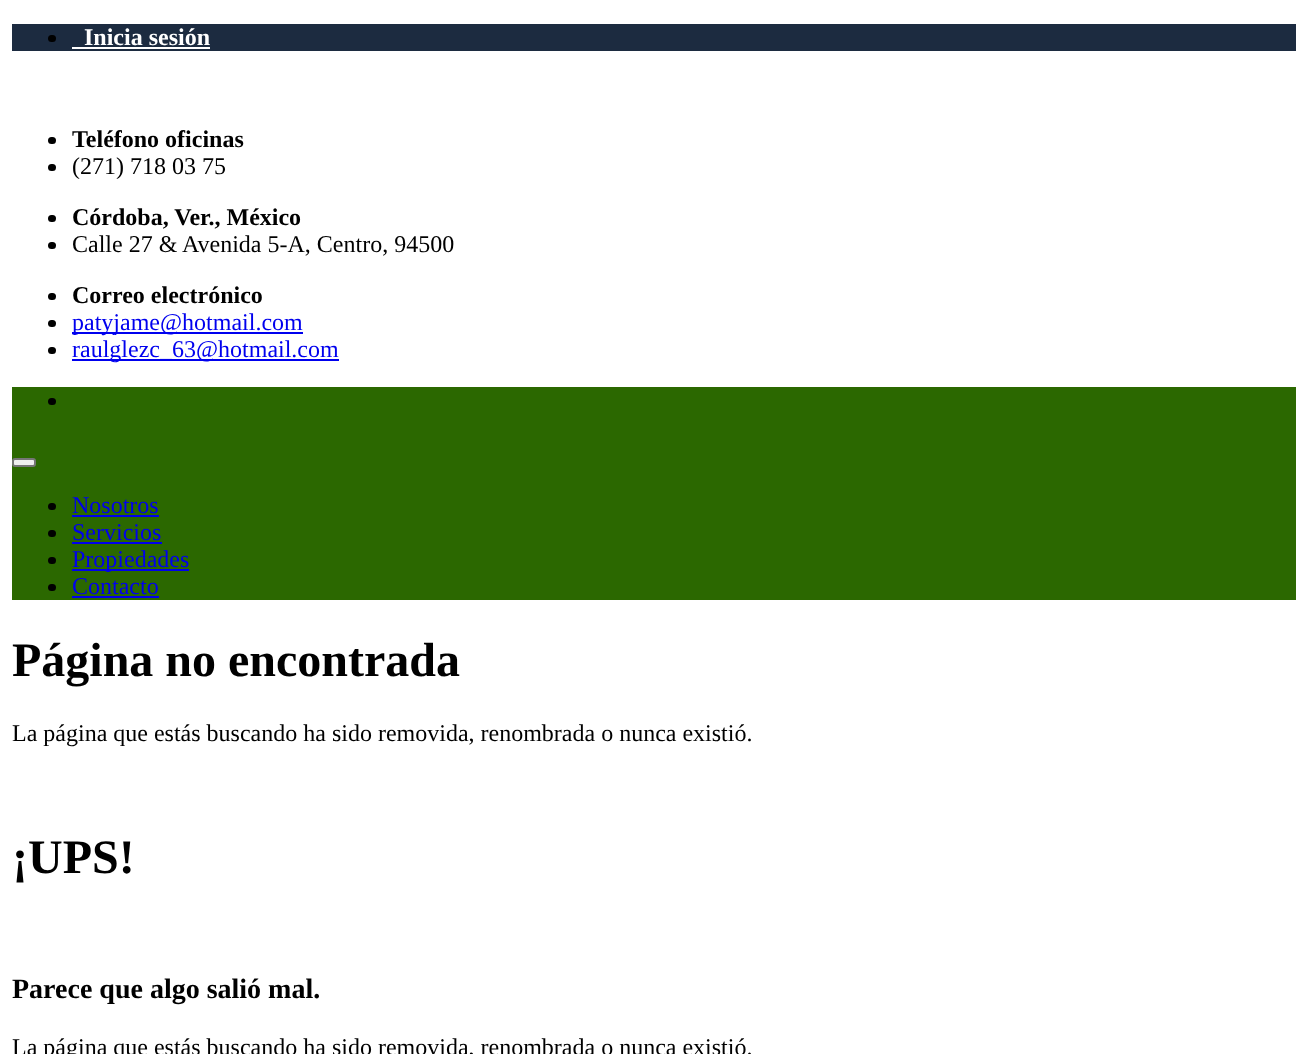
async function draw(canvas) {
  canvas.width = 1308
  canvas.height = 1054
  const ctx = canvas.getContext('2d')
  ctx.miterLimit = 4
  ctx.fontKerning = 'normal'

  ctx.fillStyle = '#fff'
  ctx.fillRect(0, 0, 1308, 1054)
  ctx.fillStyle = '#1c2b40'
  ctx.fillRect(12, 24, 1284, 27)
  ctx.fillStyle = '#000'
  ctx.beginPath()
  ctx.roundRect(48, 35, 8, 7, 3.5)
  ctx.fill()
  ctx.font = 'bold 24px Liberation Serif'
  ctx.fillStyle = '#fff'
  ctx.fillText('Inicia sesión', 84, 45)
  ctx.fillRect(72, 47, 138, 2)
  ctx.fillStyle = '#000'
  ctx.beginPath()
  ctx.roundRect(48, 137, 8, 7, 3.5)
  ctx.fill()
  ctx.fillText('Teléfono oficinas', 72, 147)
  ctx.beginPath()
  ctx.roundRect(48, 164, 8, 7, 3.5)
  ctx.fill()
  ctx.font = '24px Liberation Serif'
  ctx.fillText('(271) 718 03 75', 72, 174)
  ctx.beginPath()
  ctx.roundRect(48, 215, 8, 7, 3.5)
  ctx.fill()
  ctx.font = 'bold 24px Liberation Serif'
  ctx.fillText('Córdoba, Ver., México', 72, 225)
  ctx.beginPath()
  ctx.roundRect(48, 242, 8, 7, 3.5)
  ctx.fill()
  ctx.font = '24px Liberation Serif'
  ctx.fillText('Calle 27 & Avenida 5-A, Centro, 94500', 72, 252)
  ctx.beginPath()
  ctx.roundRect(48, 293, 8, 7, 3.5)
  ctx.fill()
  ctx.font = 'bold 24px Liberation Serif'
  ctx.fillText('Correo electrónico', 72, 303)
  ctx.beginPath()
  ctx.roundRect(48, 320, 8, 7, 3.5)
  ctx.fill()
  ctx.fillStyle = '#00e'
  ctx.fillRect(72, 332, 231, 2)
  ctx.font = '24px Liberation Serif'
  ctx.fillText('patyjame@hotmail.com', 72, 330)
  ctx.fillStyle = '#000'
  ctx.beginPath()
  ctx.roundRect(48, 347, 8, 7, 3.5)
  ctx.fill()
  ctx.fillStyle = '#00e'
  ctx.fillRect(72, 359, 267, 2)
  ctx.fillText('raulglezc_63@hotmail.com', 72, 357)
  ctx.fillStyle = '#2b6800'
  ctx.fillRect(12, 387, 1284, 213)
  ctx.fillStyle = '#000'
  ctx.beginPath()
  ctx.roundRect(48, 398, 8, 7, 3.5)
  ctx.fill()
  ctx.fillStyle = '#efefef'
  ctx.beginPath()
  ctx.roundRect(13, 459, 22, 7, 2)
  ctx.fill()
  ctx.strokeStyle = '#767676'
  ctx.lineWidth = 2
  ctx.stroke()
  ctx.fillStyle = '#000'
  ctx.beginPath()
  ctx.roundRect(48, 503, 8, 7, 3.5)
  ctx.fill()
  ctx.fillStyle = '#00e'
  ctx.fillText('Nosotros', 72, 513)
  ctx.fillRect(72, 515, 87, 2)
  ctx.fillStyle = '#000'
  ctx.beginPath()
  ctx.roundRect(48, 530, 8, 7, 3.5)
  ctx.fill()
  ctx.fillStyle = '#00e'
  ctx.fillText('Servicios', 72, 540)
  ctx.fillRect(72, 542, 90, 2)
  ctx.fillStyle = '#000'
  ctx.beginPath()
  ctx.roundRect(48, 557, 8, 7, 3.5)
  ctx.fill()
  ctx.fillStyle = '#00e'
  ctx.fillRect(72, 569, 117, 2)
  ctx.fillText('Propiedades', 72, 567)
  ctx.fillStyle = '#000'
  ctx.beginPath()
  ctx.roundRect(48, 584, 8, 7, 3.5)
  ctx.fill()
  ctx.fillStyle = '#00e'
  ctx.fillText('Contacto', 72, 594)
  ctx.fillRect(72, 596, 87, 2)
  ctx.font = 'bold 48px Liberation Serif'
  ctx.fillStyle = '#000'
  ctx.fillText('Página no encontrada', 12, 676)
  ctx.font = '24px Liberation Serif'
  ctx.fillText('La página que estás buscando ha sido removida, renombrada o nunca existió.', 12, 741)
  ctx.font = 'bold 48px Liberation Serif'
  ctx.fillText('¡UPS!', 12, 873)
  ctx.font = 'bold 28px Liberation Serif'
  ctx.fillText('Parece que algo salió mal.', 12, 998)
  ctx.font = '24px Liberation Serif'
  ctx.fillText('La página que estás buscando ha sido removida, renombrada o nunca existió.', 12, 1055)
}

draw(document.querySelector('canvas'))
